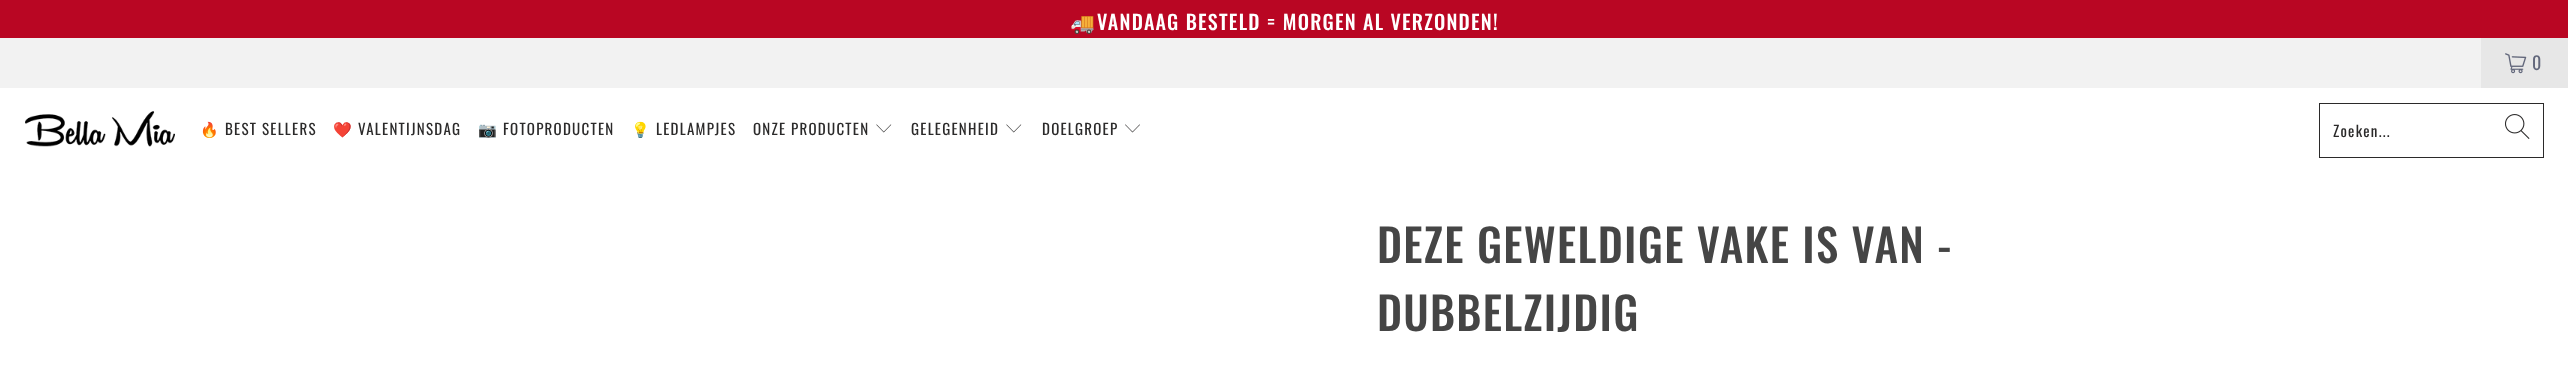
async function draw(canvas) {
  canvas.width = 2568
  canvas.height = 367
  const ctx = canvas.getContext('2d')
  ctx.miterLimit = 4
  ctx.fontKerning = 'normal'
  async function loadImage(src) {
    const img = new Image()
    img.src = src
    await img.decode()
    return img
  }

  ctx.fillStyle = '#fff'
  ctx.fillRect(0, 0, 2568, 367)
  ctx.fillStyle = '#b90623'
  ctx.fillRect(0, 0, 2568, 38)
  ctx.letterSpacing = '1.25px'
  ctx.font = '20px Noto Color Emoji'
  ctx.fillStyle = '#fff'
  ctx.fillText('🚚', 1070, 30)
  ctx.font = '500 20px Oswald'
  ctx.fillText('VANDAAG BESTELD = MORGEN AL VERZONDEN!', 1097, 30)
  ctx.fillStyle = '#f2f2f2'
  ctx.fillRect(0, 38, 2481, 50)
  ctx.fillStyle = '#e7e7e7'
  ctx.fillRect(2481, 38, 87, 50)
  ctx.drawImage(await loadImage('image0.png'), 2505, 53, 22, 21)
  ctx.font = '18px Oswald'
  ctx.fillStyle = '#62677b'
  ctx.fillText('0', 2532, 70)
  ctx.drawImage(await loadImage('image1.png'), 25, 111, 150, 36)
  ctx.font = '15px Noto Color Emoji'
  ctx.fillStyle = '#2b2a2a'
  ctx.fillText('🔥', 200, 135)
  ctx.font = '15px Oswald'
  ctx.fillText('BEST SELLERS', 225, 135)
  ctx.font = '15px Noto Color Emoji'
  ctx.fillText('❤️', 333, 135)
  ctx.font = '15px Oswald'
  ctx.fillText('VALENTIJNSDAG', 358, 135)
  ctx.font = '15px Noto Color Emoji'
  ctx.fillText('📷', 478, 135)
  ctx.font = '15px Oswald'
  ctx.fillText('FOTOPRODUCTEN', 503, 135)
  ctx.font = '15px Noto Color Emoji'
  ctx.fillText('💡', 631, 135)
  ctx.font = '15px Oswald'
  ctx.fillText('LEDLAMPJES', 656, 135)
  ctx.fillText('ONZE PRODUCTEN', 753, 135)
  ctx.drawImage(await loadImage('image2.png'), 876, 124, 16, 9)
  ctx.fillText('GELEGENHEID', 911, 135)
  ctx.drawImage(await loadImage('image2.png'), 1006, 124, 16, 9)
  ctx.fillText('DOELGROEP', 1042, 135)
  ctx.drawImage(await loadImage('image3.png'), 1125, 124, 15, 9)
  ctx.strokeStyle = '#2b2a2a'
  ctx.strokeRect(2319.5, 103.5, 224, 54)
  ctx.fillText('Zoeken...', 2333, 137)
  ctx.drawImage(await loadImage('image4.png'), 2505, 114, 25, 25)
  ctx.font = '500 45px Oswald'
  ctx.fillStyle = '#454545'
  ctx.fillText('DEZE GEWELDIGE VAKE IS VAN -', 1377, 263)
  ctx.fillText('DUBBELZIJDIG', 1377, 331)
}

draw(document.querySelector('canvas'))
